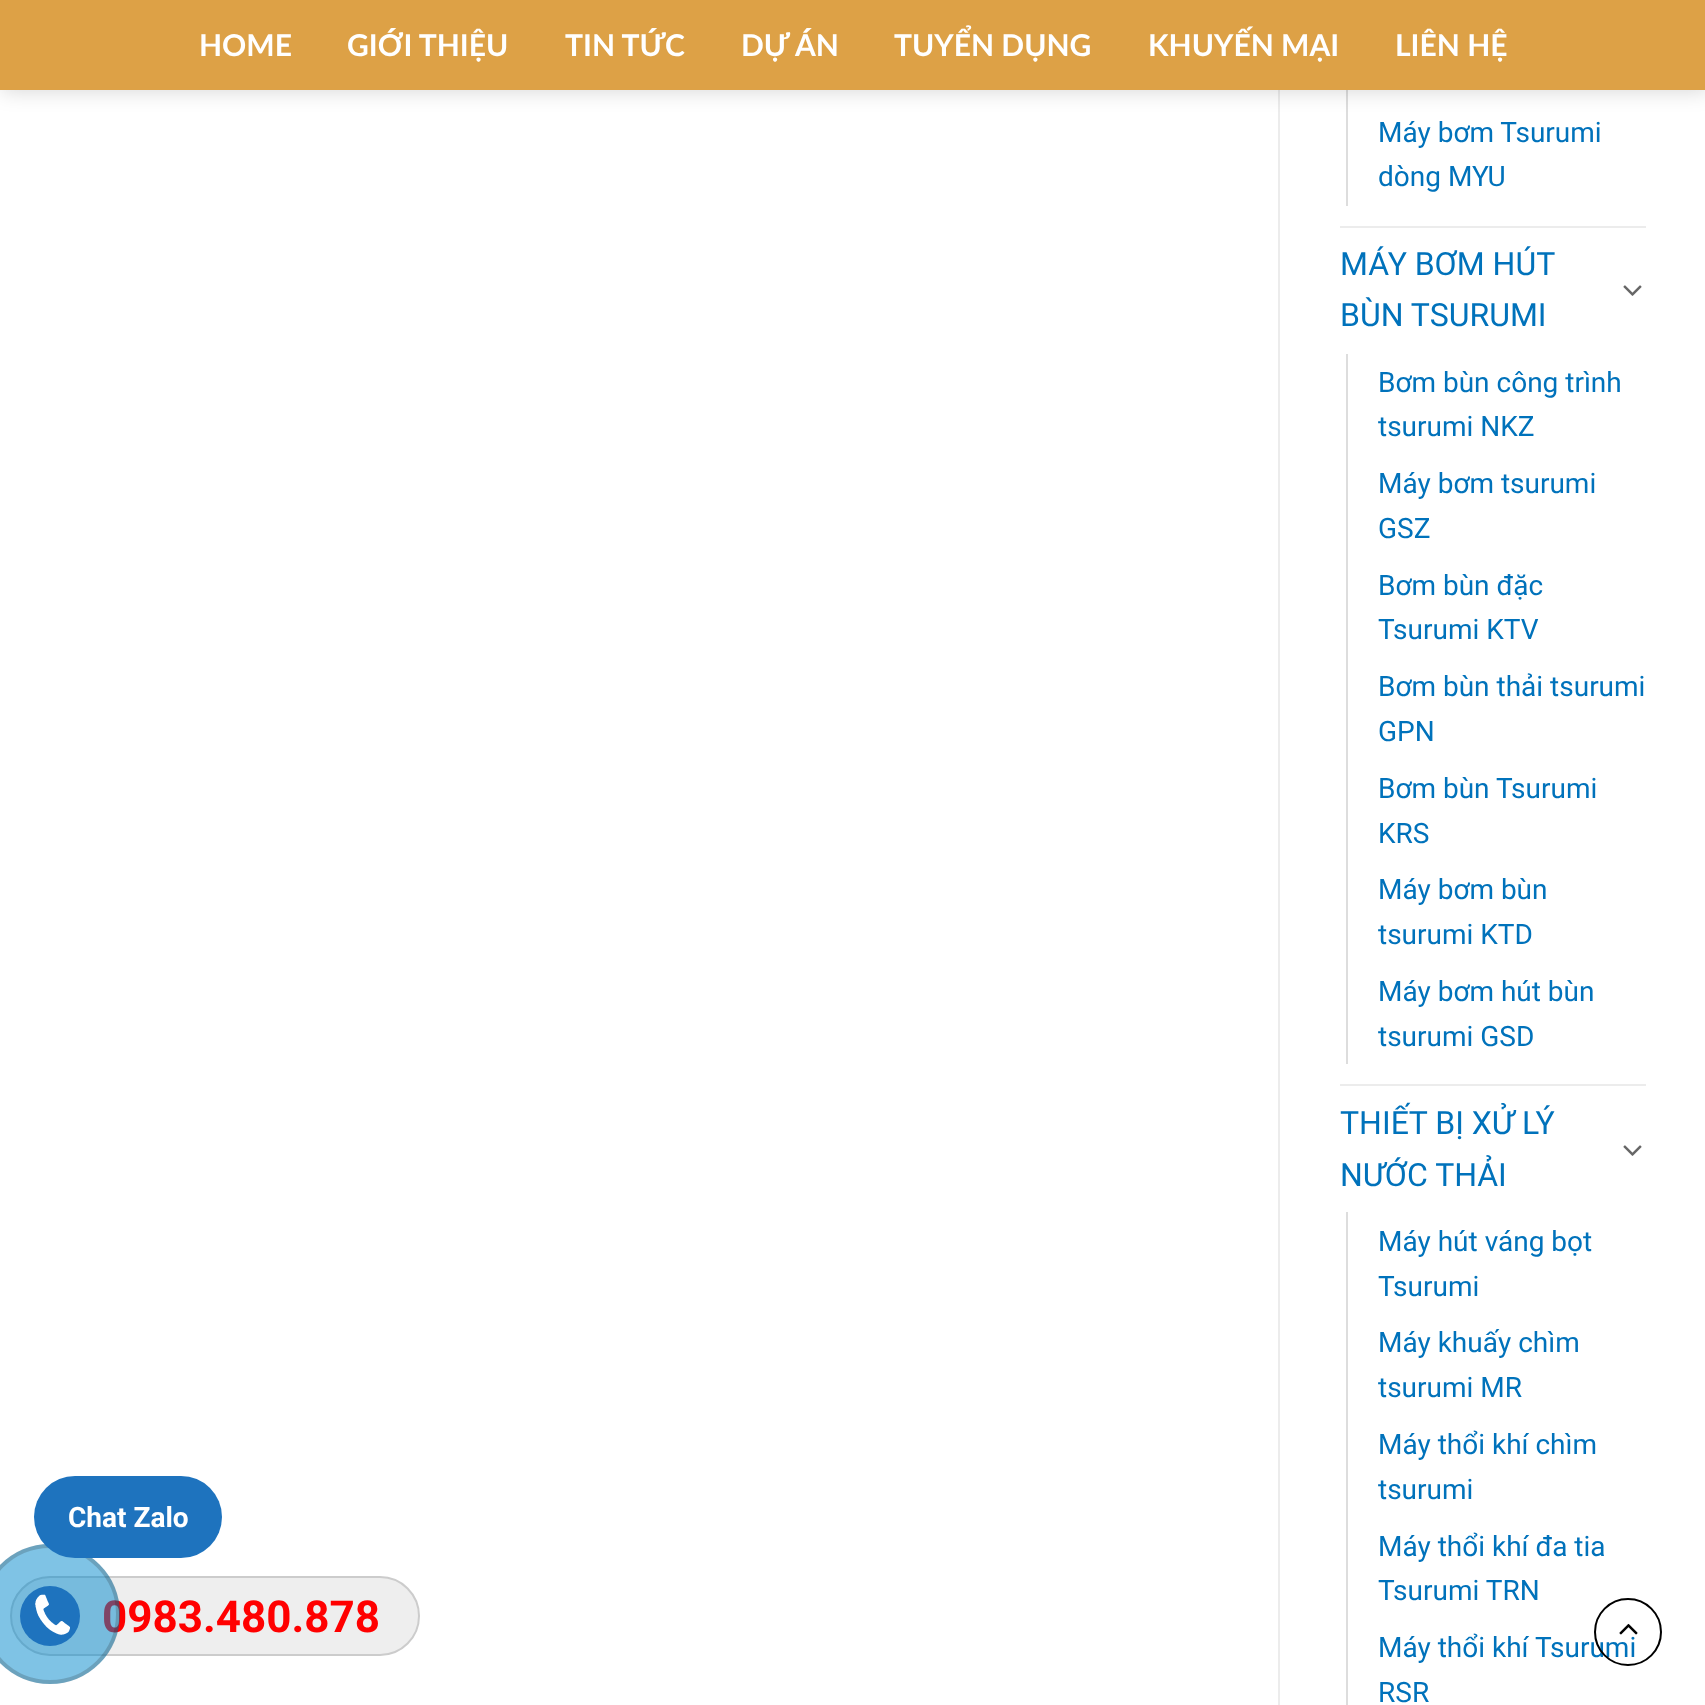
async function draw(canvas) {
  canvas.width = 1705
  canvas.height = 1705
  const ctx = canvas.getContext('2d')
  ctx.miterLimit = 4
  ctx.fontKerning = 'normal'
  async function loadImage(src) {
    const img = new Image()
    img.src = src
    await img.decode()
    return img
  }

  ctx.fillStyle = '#fff'
  ctx.fillRect(0, 0, 1705, 1705)
  ctx.fillStyle = '#eee'
  ctx.beginPath()
  ctx.roundRect(11, 1577, 408, 78, 39)
  ctx.fill()
  ctx.strokeStyle = '#ccc'
  ctx.lineWidth = 2
  ctx.stroke()
  ctx.font = 'bold 44px Roboto'
  ctx.fillStyle = '#f00'
  ctx.fillText('0983.480.878', 102, 1632)
  ctx.fillStyle = '#0088cc80'
  ctx.beginPath()
  ctx.arc(50, 1614, 70, 0, 2 * Math.PI)
  ctx.fill()
  ctx.beginPath()
  ctx.arc(50, 1614, 68, 0, 2 * Math.PI)
  ctx.strokeStyle = '#1e1e1e33'
  ctx.lineWidth = 4
  ctx.stroke()
  ctx.fillStyle = '#1e73be'
  ctx.beginPath()
  ctx.roundRect(34, 1476, 188, 82, 41)
  ctx.fill()
  ctx.font = 'bold 28px Roboto'
  ctx.fillStyle = '#fff'
  ctx.fillText('Chat Zalo', 68, 1527)
  ctx.fillStyle = '#ececec'
  ctx.fillRect(1278, 90, 2, 1615)
  ctx.fillStyle = '#ddd'
  ctx.fillRect(1346, 90, 2, 116)
  ctx.fillStyle = '#00000026'
  ctx.filter = 'blur(10px)'
  ctx.beginPath()
  ctx.rect(2, 2, 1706, 90)
  ctx.fill()
  ctx.filter = 'none'
  ctx.fillStyle = '#dda146'
  ctx.fillRect(0, 0, 1705, 90)
  ctx.font = 'bold 30px Lato'
  ctx.fillStyle = '#fff'
  ctx.fillText('HOME', 199, 56)
  ctx.fillText('GIỚI THIỆU', 347, 56)
  ctx.fillText('TIN TỨC', 565, 56)
  ctx.fillText('DỰ ÁN', 741, 56)
  ctx.fillText('TUYỂN DỤNG', 894, 56)
  ctx.fillText('KHUYẾN MẠI', 1148, 56)
  ctx.fillText('LIÊN HỆ', 1395, 56)
  ctx.font = '28px Roboto'
  ctx.fillStyle = '#0072bb'
  ctx.fillText('Máy bơm Tsurumi', 1378, 142)
  ctx.fillText('dòng MYU', 1378, 186)
  ctx.fillStyle = '#ececec'
  ctx.fillRect(1340, 226, 306, 2)
  ctx.font = '32px Roboto'
  ctx.fillStyle = '#0072bb'
  ctx.fillText('MÁY BƠM HÚT', 1340, 275)
  ctx.fillText('BÙN TSURUMI', 1340, 326)
  ctx.drawImage(await loadImage('image0.png'), 1623, 285, 19, 11)
  ctx.fillStyle = '#ddd'
  ctx.fillRect(1346, 354, 2, 710)
  ctx.font = '28px Roboto'
  ctx.fillStyle = '#0072bb'
  ctx.fillText('Bơm bùn công trình', 1378, 392)
  ctx.fillText('tsurumi NKZ', 1378, 436)
  ctx.fillText('Máy bơm tsurumi', 1378, 493)
  ctx.fillText('GSZ', 1378, 538)
  ctx.fillText('Bơm bùn đặc', 1378, 595)
  ctx.fillText('Tsurumi KTV', 1378, 639)
  ctx.fillText('Bơm bùn thải tsurumi', 1378, 696)
  ctx.fillText('GPN', 1378, 741)
  ctx.fillText('Bơm bùn Tsurumi', 1378, 798)
  ctx.fillText('KRS', 1378, 843)
  ctx.fillText('Máy bơm bùn', 1378, 899)
  ctx.fillText('tsurumi KTD', 1378, 944)
  ctx.fillText('Máy bơm hút bùn', 1378, 1001)
  ctx.fillText('tsurumi GSD', 1378, 1046)
  ctx.fillStyle = '#ececec'
  ctx.fillRect(1340, 1084, 306, 2)
  ctx.font = '32px Roboto'
  ctx.fillStyle = '#0072bb'
  ctx.fillText('THIẾT BỊ XỬ LÝ', 1340, 1134)
  ctx.fillText('NƯỚC THẢI', 1340, 1186)
  ctx.drawImage(await loadImage('image0.png'), 1623, 1145, 19, 11)
  ctx.fillStyle = '#ddd'
  ctx.fillRect(1346, 1212, 2, 493)
  ctx.font = '28px Roboto'
  ctx.fillStyle = '#0072bb'
  ctx.fillText('Máy hút váng bọt', 1378, 1251)
  ctx.fillText('Tsurumi', 1378, 1296)
  ctx.fillText('Máy khuấy chìm', 1378, 1352)
  ctx.fillText('tsurumi MR', 1378, 1397)
  ctx.fillText('Máy thổi khí chìm', 1378, 1454)
  ctx.fillText('tsurumi', 1378, 1499)
  ctx.fillText('Máy thổi khí đa tia', 1378, 1556)
  ctx.fillText('Tsurumi TRN', 1378, 1600)
  ctx.fillText('Máy thổi khí Tsurumi', 1378, 1657)
  ctx.fillText('RSR', 1378, 1702)
  ctx.beginPath()
  ctx.arc(1628, 1632, 33, 0, 2 * Math.PI)
  ctx.strokeStyle = '#000'
  ctx.lineWidth = 2
  ctx.stroke()
  ctx.drawImage(await loadImage('image1.png'), 1619, 1623, 19, 12)
  ctx.fillStyle = '#1e73be'
  ctx.beginPath()
  ctx.arc(50, 1616, 30, 0, 2 * Math.PI)
  ctx.fill()
  ctx.drawImage(await loadImage('image2.png'), 35, 1594, 35, 41)
}

draw(document.querySelector('canvas'))
